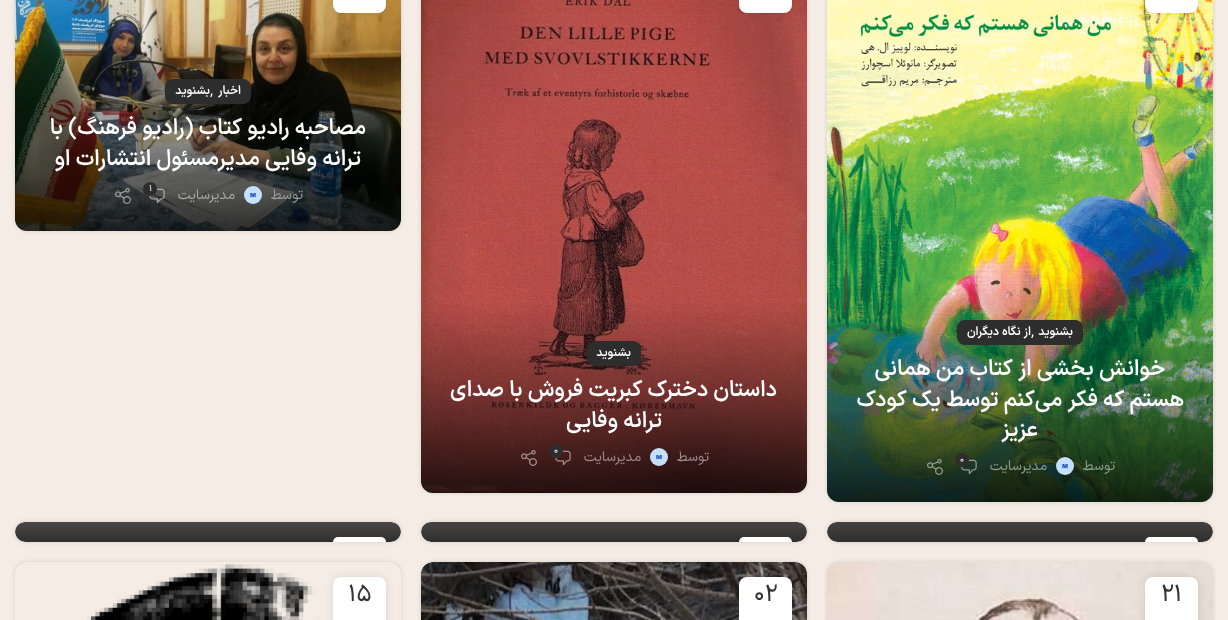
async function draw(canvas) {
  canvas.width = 1228
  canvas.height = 620
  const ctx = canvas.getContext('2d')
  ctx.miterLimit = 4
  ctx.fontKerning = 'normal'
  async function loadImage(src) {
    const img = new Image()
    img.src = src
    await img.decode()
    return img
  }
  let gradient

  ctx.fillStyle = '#f4ece5'
  ctx.fillRect(0, 0, 1228, 620)
  ctx.fillStyle = '#0000001f'
  ctx.filter = 'blur(2px)'
  ctx.beginPath()
  ctx.roundRect(15, -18, 386, 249, 12)
  ctx.fill()
  ctx.filter = 'none'
  ctx.drawImage(await loadImage('image0.png'), 15, 0, 386, 231)
  ctx.fillStyle = '#0000001a'
  ctx.filter = 'blur(4.5px)'
  ctx.beginPath()
  ctx.roundRect(333, -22, 53, 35, 8)
  ctx.fill()
  ctx.filter = 'none'
  ctx.fillStyle = '#fff'
  ctx.beginPath()
  ctx.roundRect(333, -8, 53, 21, 8)
  ctx.fill()
  gradient = ctx.createLinearGradient(208, 29, 208, 231)
  gradient.addColorStop(0.05, '#00000000')
  gradient.addColorStop(0.5, '#00000059')
  gradient.addColorStop(1, '#000000cc')
  ctx.fillStyle = gradient
  ctx.beginPath()
  ctx.roundRect(15, 29, 386, 202, 12)
  ctx.fill()
  ctx.fillStyle = '#2d2d2d'
  ctx.beginPath()
  ctx.roundRect(165, 79, 86, 25, 8)
  ctx.fill()
  ctx.direction = 'rtl'
  ctx.font = '600 12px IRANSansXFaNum'
  ctx.fillStyle = '#fff'
  ctx.fillText('اخبار', 241, 94)
  ctx.direction = 'ltr'
  ctx.font = '15px IRANSansXFaNum'
  ctx.fillText(',', 210, 95)
  ctx.direction = 'rtl'
  ctx.font = '600 12px IRANSansXFaNum'
  ctx.fillText('بشنوید', 210, 94)
  ctx.font = '600 22px IRANSansXFaNum'
  ctx.fillText('مصاحبه رادیو کتاب (رادیو فرهنگ) با', 366, 134)
  ctx.fillText('ترانه وفایی مدیرمسئول انتشارات او', 361, 165)
  ctx.drawImage(await loadImage('image1.png'), 149, 188, 16, 16)
  ctx.fillStyle = '#2d2d2d'
  ctx.beginPath()
  ctx.arc(150, 189, 7, 0, 2 * Math.PI)
  ctx.fill()
  ctx.direction = 'ltr'
  ctx.font = '9px IRANSansXFaNum'
  ctx.fillStyle = '#fff'
  ctx.fillText('1', 149, 191)
  ctx.direction = 'rtl'
  ctx.font = '14px IRANSansXFaNum'
  ctx.fillStyle = '#9a9d9d'
  ctx.fillText('توسط', 303, 199)
  ctx.drawImage(await loadImage('image2.png'), 244, 186, 18, 18)
  ctx.fillStyle = '#a6a6a5'
  ctx.fillText('مدیرسایت', 235, 199)
  ctx.drawImage(await loadImage('image3.png'), 115, 188, 16, 16)
  ctx.fillStyle = '#0000001f'
  ctx.filter = 'blur(2px)'
  ctx.beginPath()
  ctx.roundRect(827, -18, 386, 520, 12)
  ctx.fill()
  ctx.filter = 'none'
  ctx.drawImage(await loadImage('image4.png'), 827, 0, 386, 502)
  ctx.fillStyle = '#0000001a'
  ctx.filter = 'blur(4.5px)'
  ctx.beginPath()
  ctx.roundRect(1145, -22, 53, 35, 8)
  ctx.fill()
  ctx.filter = 'none'
  ctx.fillStyle = '#fff'
  ctx.beginPath()
  ctx.roundRect(1145, -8, 53, 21, 8)
  ctx.fill()
  gradient = ctx.createLinearGradient(1020, 270, 1020, 502)
  gradient.addColorStop(0.05, '#00000000')
  gradient.addColorStop(0.5, '#00000059')
  gradient.addColorStop(1, '#000000cc')
  ctx.fillStyle = gradient
  ctx.beginPath()
  ctx.roundRect(827, 270, 386, 232, 12)
  ctx.fill()
  ctx.fillStyle = '#2d2d2d'
  ctx.beginPath()
  ctx.roundRect(957, 320, 126, 25, 8)
  ctx.fill()
  ctx.font = '600 12px IRANSansXFaNum'
  ctx.fillStyle = '#fff'
  ctx.fillText('بشنوید', 1073, 335)
  ctx.direction = 'ltr'
  ctx.font = '15px IRANSansXFaNum'
  ctx.fillText(',', 1031, 336)
  ctx.direction = 'rtl'
  ctx.font = '600 12px IRANSansXFaNum'
  ctx.fillText('از نگاه دیگران', 1031, 335)
  ctx.font = '600 22px IRANSansXFaNum'
  ctx.fillText('خوانش بخشی از کتاب من همانی', 1165, 375)
  ctx.fillText('هستم که فکر می‌کنم توسط یک کودک', 1184, 406)
  ctx.fillText('عزیز', 1038, 436)
  ctx.font = '14px IRANSansXFaNum'
  ctx.fillStyle = '#8d9c8b'
  ctx.fillText('توسط', 1115, 470)
  ctx.drawImage(await loadImage('image5.png'), 1056, 457, 18, 18)
  ctx.fillText('مدیرسایت', 1047, 470)
  ctx.drawImage(await loadImage('image6.png'), 961, 459, 16, 16)
  ctx.fillStyle = '#2d2d2d'
  ctx.beginPath()
  ctx.arc(962, 460, 7, 0, 2 * Math.PI)
  ctx.fill()
  ctx.direction = 'ltr'
  ctx.font = '9px IRANSansXFaNum'
  ctx.fillStyle = '#fff'
  ctx.fillText('0', 960, 462)
  ctx.drawImage(await loadImage('image7.png'), 927, 459, 16, 16)
  ctx.fillStyle = '#0000001f'
  ctx.filter = 'blur(2px)'
  ctx.beginPath()
  ctx.roundRect(421, -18, 386, 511, 12)
  ctx.fill()
  ctx.filter = 'none'
  ctx.drawImage(await loadImage('image8.png'), 421, 0, 386, 493)
  ctx.fillStyle = '#0000001a'
  ctx.filter = 'blur(4.5px)'
  ctx.beginPath()
  ctx.roundRect(739, -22, 53, 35, 8)
  ctx.fill()
  ctx.filter = 'none'
  ctx.fillStyle = '#fff'
  ctx.beginPath()
  ctx.roundRect(739, -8, 53, 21, 8)
  ctx.fill()
  gradient = ctx.createLinearGradient(614, 291, 614, 493)
  gradient.addColorStop(0.05, '#00000000')
  gradient.addColorStop(0.5, '#00000059')
  gradient.addColorStop(1, '#000000cc')
  ctx.fillStyle = gradient
  ctx.beginPath()
  ctx.roundRect(421, 291, 386, 202, 12)
  ctx.fill()
  ctx.fillStyle = '#2d2d2d'
  ctx.beginPath()
  ctx.roundRect(587, 341, 54, 25, 8)
  ctx.fill()
  ctx.direction = 'rtl'
  ctx.font = '600 12px IRANSansXFaNum'
  ctx.fillStyle = '#fff'
  ctx.fillText('بشنوید', 631, 356)
  ctx.font = '600 22px IRANSansXFaNum'
  ctx.fillText('داستان دخترک کبریت فروش با صدای', 777, 396)
  ctx.fillText('ترانه وفایی', 662, 427)
  ctx.font = '14px IRANSansXFaNum'
  ctx.fillStyle = '#9b8b8b'
  ctx.fillText('توسط', 709, 461)
  ctx.drawImage(await loadImage('image9.png'), 650, 448, 18, 18)
  ctx.fillText('مدیرسایت', 641, 461)
  ctx.drawImage(await loadImage('image10.png'), 555, 450, 16, 16)
  ctx.fillStyle = '#2d2d2d'
  ctx.beginPath()
  ctx.arc(556, 451, 7, 0, 2 * Math.PI)
  ctx.fill()
  ctx.direction = 'ltr'
  ctx.font = '9px IRANSansXFaNum'
  ctx.fillStyle = '#fff'
  ctx.fillText('0', 554, 453)
  ctx.drawImage(await loadImage('image11.png'), 521, 450, 16, 16)
  ctx.fillStyle = '#0000001f'
  ctx.filter = 'blur(2px)'
  ctx.beginPath()
  ctx.roundRect(827, 522, 386, 20, 10)
  ctx.fill()
  ctx.filter = 'none'
  ctx.save()
  ctx.beginPath()
  ctx.roundRect(827, 522, 386, 20, 10)
  ctx.clip()
  gradient = ctx.createLinearGradient(1020, 310, 1020, 542)
  gradient.addColorStop(0.05, '#f4ece5')
  gradient.addColorStop(0.5, '#9f9995')
  gradient.addColorStop(1, '#312f2e')
  ctx.fillStyle = gradient
  ctx.beginPath()
  ctx.roundRect(827, 522, 386, 20, [10, 10, 12, 12])
  ctx.fill()
  ctx.restore()
  ctx.fillStyle = '#fff'
  ctx.beginPath()
  ctx.roundRect(1145, 537, 53, 5, [8, 8, 0, 0])
  ctx.fill()
  ctx.fillStyle = '#0000001f'
  ctx.filter = 'blur(2px)'
  ctx.beginPath()
  ctx.roundRect(421, 522, 386, 20, 10)
  ctx.fill()
  ctx.filter = 'none'
  ctx.save()
  ctx.beginPath()
  ctx.roundRect(421, 522, 386, 20, 10)
  ctx.clip()
  gradient = ctx.createLinearGradient(614, 341, 614, 542)
  gradient.addColorStop(0.05, '#f4ece5')
  gradient.addColorStop(0.5, '#9f9995')
  gradient.addColorStop(1, '#312f2e')
  ctx.fillStyle = gradient
  ctx.beginPath()
  ctx.roundRect(421, 522, 386, 20, [10, 10, 12, 12])
  ctx.fill()
  ctx.restore()
  ctx.fillStyle = '#fff'
  ctx.beginPath()
  ctx.roundRect(739, 537, 53, 5, [8, 8, 0, 0])
  ctx.fill()
  ctx.fillStyle = '#0000001f'
  ctx.filter = 'blur(2px)'
  ctx.beginPath()
  ctx.roundRect(15, 522, 386, 20, 10)
  ctx.fill()
  ctx.filter = 'none'
  ctx.save()
  ctx.beginPath()
  ctx.roundRect(15, 522, 386, 20, 10)
  ctx.clip()
  gradient = ctx.createLinearGradient(208, 372, 208, 542)
  gradient.addColorStop(0.05, '#f4ece5')
  gradient.addColorStop(0.5, '#9f9995')
  gradient.addColorStop(1, '#312f2e')
  ctx.fillStyle = gradient
  ctx.beginPath()
  ctx.roundRect(15, 522, 386, 20, [10, 10, 12, 12])
  ctx.fill()
  ctx.restore()
  ctx.fillStyle = '#fff'
  ctx.beginPath()
  ctx.roundRect(333, 537, 53, 5, [8, 8, 0, 0])
  ctx.fill()
  ctx.fillStyle = '#0000001f'
  ctx.filter = 'blur(2px)'
  ctx.beginPath()
  ctx.roundRect(827, 562, 386, 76, 12)
  ctx.fill()
  ctx.filter = 'none'
  ctx.drawImage(await loadImage('image12.png'), 827, 562, 386, 58)
  ctx.fillStyle = '#0000001a'
  ctx.filter = 'blur(4.5px)'
  ctx.beginPath()
  ctx.roundRect(1145, 577, 53, 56, 8)
  ctx.fill()
  ctx.filter = 'none'
  ctx.fillStyle = '#fff'
  ctx.beginPath()
  ctx.roundRect(1145, 577, 53, 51, 8)
  ctx.fill()
  ctx.font = '24px IRANSansXFaNum'
  ctx.fillStyle = '#333'
  ctx.fillText('21', 1161, 601)
  ctx.fillStyle = '#0000001f'
  ctx.filter = 'blur(2px)'
  ctx.beginPath()
  ctx.roundRect(421, 562, 386, 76, 12)
  ctx.fill()
  ctx.filter = 'none'
  ctx.drawImage(await loadImage('image13.png'), 421, 562, 386, 58)
  ctx.fillStyle = '#0000001a'
  ctx.filter = 'blur(4.5px)'
  ctx.beginPath()
  ctx.roundRect(739, 577, 53, 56, 8)
  ctx.fill()
  ctx.filter = 'none'
  ctx.fillStyle = '#fff'
  ctx.beginPath()
  ctx.roundRect(739, 577, 53, 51, 8)
  ctx.fill()
  ctx.fillStyle = '#333'
  ctx.fillText('02', 754, 601)
  ctx.save()
  ctx.beginPath()
  ctx.moveTo(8, 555)
  ctx.lineTo(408, 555)
  ctx.lineTo(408, 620)
  ctx.lineTo(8, 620)
  ctx.closePath()
  ctx.moveTo(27, 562)
  ctx.lineTo(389, 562)
  ctx.bezierCurveTo(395.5, 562, 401, 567.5, 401, 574)
  ctx.lineTo(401, 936)
  ctx.bezierCurveTo(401, 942.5, 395.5, 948, 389, 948)
  ctx.lineTo(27, 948)
  ctx.bezierCurveTo(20.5, 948, 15, 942.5, 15, 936)
  ctx.lineTo(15, 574)
  ctx.bezierCurveTo(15, 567.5, 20.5, 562, 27, 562)
  ctx.closePath()
  ctx.clip('evenodd')
  ctx.fillStyle = '#0000001f'
  ctx.filter = 'blur(2px)'
  ctx.beginPath()
  ctx.roundRect(15, 562, 386, 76, 12)
  ctx.fill()
  ctx.filter = 'none'
  ctx.restore()
  ctx.drawImage(await loadImage('image14.png'), 87, 564, 233, 56)
  ctx.fillStyle = '#0000001a'
  ctx.filter = 'blur(4.5px)'
  ctx.beginPath()
  ctx.roundRect(333, 577, 53, 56, 8)
  ctx.fill()
  ctx.filter = 'none'
  ctx.fillStyle = '#fff'
  ctx.beginPath()
  ctx.roundRect(333, 577, 53, 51, 8)
  ctx.fill()
  ctx.fillStyle = '#333'
  ctx.fillText('15', 348, 601)
}

draw(document.querySelector('canvas'))
